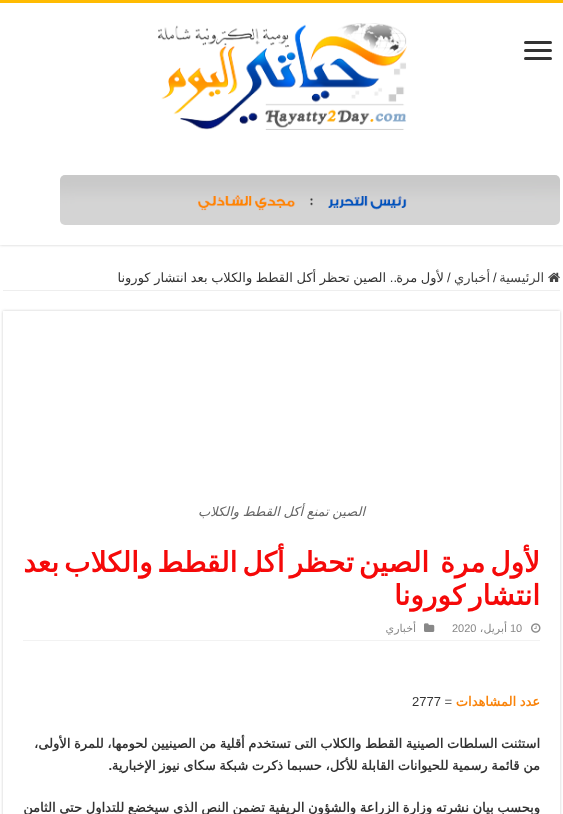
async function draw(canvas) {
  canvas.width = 563
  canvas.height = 814
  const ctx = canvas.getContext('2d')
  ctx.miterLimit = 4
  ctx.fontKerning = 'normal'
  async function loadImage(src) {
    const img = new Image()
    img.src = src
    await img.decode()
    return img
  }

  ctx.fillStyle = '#fff'
  ctx.fillRect(0, 0, 563, 814)
  ctx.save()
  ctx.beginPath()
  ctx.rect(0, 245, 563, 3)
  ctx.clip()
  ctx.fillStyle = '#cacaca'
  ctx.filter = 'blur(1.5px)'
  ctx.beginPath()
  ctx.rect(0, 0, 563, 245)
  ctx.fill()
  ctx.filter = 'none'
  ctx.restore()
  ctx.fillStyle = '#ffbb01'
  ctx.fillRect(0, 0, 563, 3)
  ctx.fillStyle = '#333'
  ctx.beginPath()
  ctx.roundRect(524, 41, 28, 3, 1.5)
  ctx.fill()
  ctx.beginPath()
  ctx.roundRect(524, 49, 28, 3, 1.5)
  ctx.fill()
  ctx.beginPath()
  ctx.roundRect(524, 57, 28, 3, 1.5)
  ctx.fill()
  ctx.drawImage(await loadImage('image0.png'), 158, 23, 249, 107)
  ctx.drawImage(await loadImage('image1.png'), 60, 175, 500, 50)
  ctx.fillStyle = '#eee'
  ctx.fillRect(3, 290, 557, 1)
  ctx.drawImage(await loadImage('image2.png'), 548, 272, 12, 10)
  ctx.direction = 'rtl'
  ctx.font = '13px DejaVu Sans'
  ctx.fillStyle = '#444'
  ctx.fillText('الرئيسية', 544, 282)
  ctx.direction = 'ltr'
  ctx.font = '13px Liberation Sans'
  ctx.fillStyle = '#333'
  ctx.fillText('/', 493, 282)
  ctx.direction = 'rtl'
  ctx.font = '13px DejaVu Sans'
  ctx.fillStyle = '#444'
  ctx.fillText('أخباري', 490, 282)
  ctx.direction = 'ltr'
  ctx.font = '13px Liberation Sans'
  ctx.fillStyle = '#333'
  ctx.fillText('/', 447, 282)
  ctx.wordSpacing = '-0.5px'
  ctx.direction = 'rtl'
  ctx.font = '13px DejaVu Sans'
  ctx.fillText('لأول مرة', 444, 282)
  ctx.wordSpacing = '0px'
  ctx.font = '13px Liberation Sans'
  ctx.fillText('..', 397, 282)
  ctx.wordSpacing = '-0.5px'
  ctx.font = '13px DejaVu Sans'
  ctx.fillText('الصين تحظر أكل القطط والكلاب بعد انتشار كورونا', 386, 282)
  ctx.save()
  ctx.beginPath()
  ctx.moveTo(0, 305)
  ctx.lineTo(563, 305)
  ctx.lineTo(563, 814)
  ctx.lineTo(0, 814)
  ctx.closePath()
  ctx.moveTo(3, 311)
  ctx.lineTo(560, 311)
  ctx.lineTo(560, 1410)
  ctx.lineTo(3, 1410)
  ctx.closePath()
  ctx.clip('evenodd')
  ctx.fillStyle = '#cacaca'
  ctx.filter = 'blur(1.5px)'
  ctx.beginPath()
  ctx.rect(3, 311, 557, 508)
  ctx.fill()
  ctx.filter = 'none'
  ctx.restore()
  ctx.font = 'italic 13px DejaVu Sans'
  ctx.fillStyle = '#666'
  ctx.fillText('الصين تمنع أكل القطط والكلاب', 365, 516)
  ctx.wordSpacing = '-4px'
  ctx.font = 'bold 28px DejaVu Sans'
  ctx.fillStyle = '#f50909'
  ctx.fillText('لأول مرة', 540, 572)
  ctx.fillText('الصين تحظر أكل القطط والكلاب بعد', 429, 572)
  ctx.wordSpacing = '-5px'
  ctx.fillText('انتشار كورونا', 540, 605)
  ctx.fillStyle = '#f2f2f2'
  ctx.fillRect(23, 640, 517, 1)
  ctx.drawImage(await loadImage('image3.png'), 531, 623, 10, 10)
  ctx.wordSpacing = '0px'
  ctx.direction = 'ltr'
  ctx.font = '11px Liberation Sans'
  ctx.fillStyle = '#888'
  ctx.fillText('10', 510, 632)
  ctx.direction = 'rtl'
  ctx.font = '11px DejaVu Sans'
  ctx.fillText('أبريل،', 507, 632)
  ctx.direction = 'ltr'
  ctx.font = '11px Liberation Sans'
  ctx.fillText('2020', 452, 632)
  ctx.drawImage(await loadImage('image4.png'), 424, 623, 11, 9)
  ctx.direction = 'rtl'
  ctx.font = '11px DejaVu Sans'
  ctx.fillText('أخباري', 416, 632)
  ctx.wordSpacing = '-0.5px'
  ctx.font = 'bold 13px DejaVu Sans'
  ctx.fillStyle = '#f9830a'
  ctx.fillText('عدد المشاهدات', 540, 706)
  ctx.wordSpacing = '0px'
  ctx.direction = 'ltr'
  ctx.font = '13px Liberation Sans'
  ctx.fillStyle = '#333'
  ctx.fillText('2777 =', 412, 706)
  ctx.wordSpacing = '-0.5px'
  ctx.direction = 'rtl'
  ctx.font = 'bold 13px DejaVu Sans'
  ctx.fillText('استثنت السلطات الصينية القطط والكلاب التى تستخدم أقلية من الصينيين لحومها، للمرة الأولى،', 540, 748)
  ctx.fillText('من قائمة رسمية للحيوانات القابلة للأكل، حسبما ذكرت شبكة سكاى نيوز الإخبارية', 540, 770)
  ctx.wordSpacing = '0px'
  ctx.font = 'bold 13px Liberation Sans'
  ctx.fillText('.', 112, 770)
  ctx.wordSpacing = '-0.4px'
  ctx.font = 'bold 13px DejaVu Sans'
  ctx.fillText('وبحسب بيان نشرته وزارة الزراعة والشؤون الريفية تضمن النص الذى سيخضع للتداول حتى الثامن', 540, 812)
}

draw(document.querySelector('canvas'))
